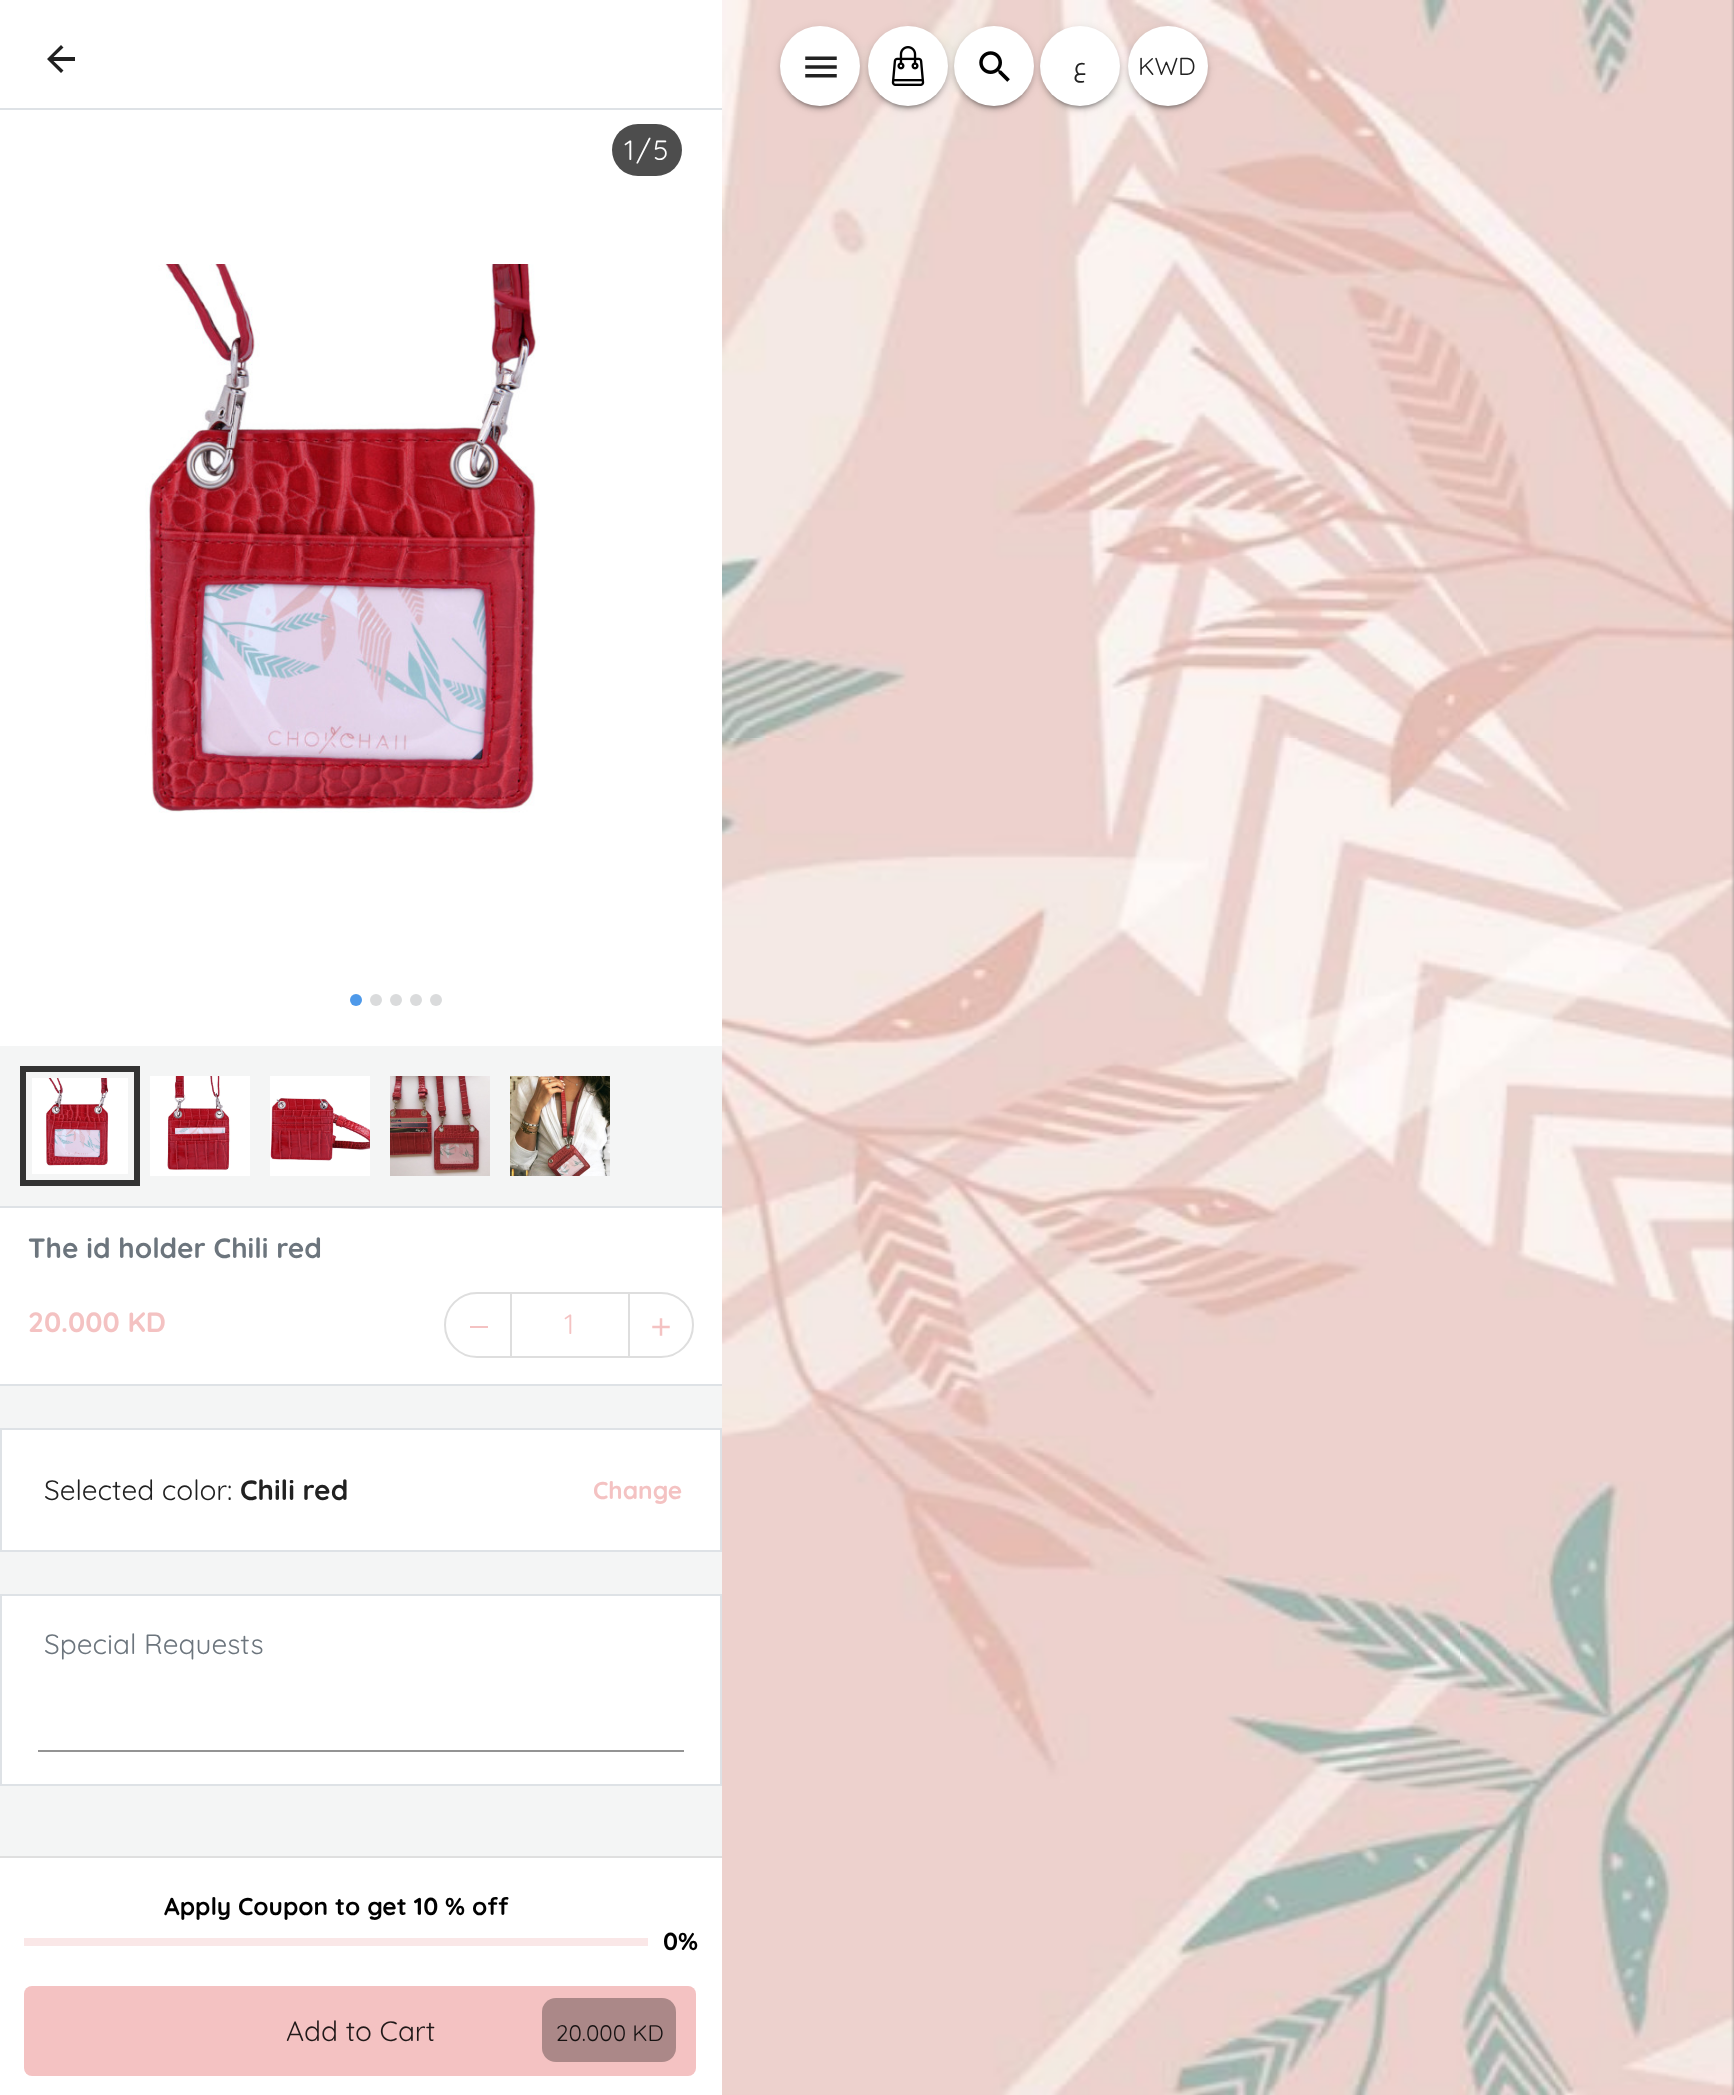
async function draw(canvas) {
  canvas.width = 1734
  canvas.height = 2095
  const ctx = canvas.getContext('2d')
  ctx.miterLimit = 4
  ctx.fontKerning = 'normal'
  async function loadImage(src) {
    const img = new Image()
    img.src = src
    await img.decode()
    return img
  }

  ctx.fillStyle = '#f4f5f5'
  ctx.fillRect(0, 0, 1734, 2095)
  ctx.fillStyle = '#808080'
  ctx.fillRect(1731, 0, 3, 2095)
  ctx.drawImage(await loadImage('image0.png'), 722, 0, 1012, 2095)
  ctx.fillStyle = '#0000001f'
  ctx.filter = 'blur(5px)'
  ctx.beginPath()
  ctx.roundRect(780, 28, 80, 80, 40)
  ctx.fill()
  ctx.filter = 'none'
  ctx.fillStyle = '#00000024'
  ctx.filter = 'blur(2px)'
  ctx.beginPath()
  ctx.roundRect(780, 30, 80, 80, 40)
  ctx.fill()
  ctx.filter = 'none'
  ctx.fillStyle = '#00000033'
  ctx.filter = 'blur(1px)'
  ctx.beginPath()
  ctx.roundRect(784, 36, 72, 72, 36)
  ctx.fill()
  ctx.filter = 'none'
  ctx.fillStyle = '#fff'
  ctx.beginPath()
  ctx.arc(820, 66, 40, 0, 2 * Math.PI)
  ctx.fill()
  ctx.drawImage(await loadImage('image1.png'), 805, 56, 32, 22)
  ctx.fillStyle = '#0000001f'
  ctx.filter = 'blur(5px)'
  ctx.beginPath()
  ctx.roundRect(1128, 28, 80, 80, 40)
  ctx.fill()
  ctx.filter = 'none'
  ctx.fillStyle = '#00000024'
  ctx.filter = 'blur(2px)'
  ctx.beginPath()
  ctx.roundRect(1128, 30, 80, 80, 40)
  ctx.fill()
  ctx.filter = 'none'
  ctx.fillStyle = '#00000033'
  ctx.filter = 'blur(1px)'
  ctx.beginPath()
  ctx.roundRect(1132, 36, 72, 72, 36)
  ctx.fill()
  ctx.filter = 'none'
  ctx.fillStyle = '#fff'
  ctx.beginPath()
  ctx.arc(1168, 66, 40, 0, 2 * Math.PI)
  ctx.fill()
  ctx.fillStyle = '#0000001f'
  ctx.filter = 'blur(5px)'
  ctx.beginPath()
  ctx.roundRect(1040, 28, 80, 80, 40)
  ctx.fill()
  ctx.filter = 'none'
  ctx.fillStyle = '#00000024'
  ctx.filter = 'blur(2px)'
  ctx.beginPath()
  ctx.roundRect(1040, 30, 80, 80, 40)
  ctx.fill()
  ctx.filter = 'none'
  ctx.fillStyle = '#00000033'
  ctx.filter = 'blur(1px)'
  ctx.beginPath()
  ctx.roundRect(1044, 36, 72, 72, 36)
  ctx.fill()
  ctx.filter = 'none'
  ctx.fillStyle = '#fff'
  ctx.beginPath()
  ctx.arc(1080, 66, 40, 0, 2 * Math.PI)
  ctx.fill()
  ctx.fillStyle = '#0000001f'
  ctx.filter = 'blur(5px)'
  ctx.beginPath()
  ctx.roundRect(954, 28, 80, 80, 40)
  ctx.fill()
  ctx.filter = 'none'
  ctx.fillStyle = '#00000024'
  ctx.filter = 'blur(2px)'
  ctx.beginPath()
  ctx.roundRect(954, 30, 80, 80, 40)
  ctx.fill()
  ctx.filter = 'none'
  ctx.fillStyle = '#00000033'
  ctx.filter = 'blur(1px)'
  ctx.beginPath()
  ctx.roundRect(958, 36, 72, 72, 36)
  ctx.fill()
  ctx.filter = 'none'
  ctx.fillStyle = '#fff'
  ctx.beginPath()
  ctx.arc(994, 66, 40, 0, 2 * Math.PI)
  ctx.fill()
  ctx.fillStyle = '#0000001f'
  ctx.filter = 'blur(5px)'
  ctx.beginPath()
  ctx.roundRect(868, 28, 80, 80, 40)
  ctx.fill()
  ctx.filter = 'none'
  ctx.fillStyle = '#00000024'
  ctx.filter = 'blur(2px)'
  ctx.beginPath()
  ctx.roundRect(868, 30, 80, 80, 40)
  ctx.fill()
  ctx.filter = 'none'
  ctx.fillStyle = '#00000033'
  ctx.filter = 'blur(1px)'
  ctx.beginPath()
  ctx.roundRect(872, 36, 72, 72, 36)
  ctx.fill()
  ctx.filter = 'none'
  ctx.fillStyle = '#fff'
  ctx.beginPath()
  ctx.arc(908, 66, 40, 0, 2 * Math.PI)
  ctx.fill()
  ctx.drawImage(await loadImage('image2.png'), 891, 46, 34, 40)
  ctx.drawImage(await loadImage('image3.png'), 979, 51, 31, 31)
  ctx.direction = 'rtl'
  ctx.font = '24.5px Cairo'
  ctx.fillStyle = '#212121'
  ctx.fillText('ع', 1087, 75)
  ctx.direction = 'ltr'
  ctx.font = '300 24.5px Quicksand'
  ctx.fillText('KWD', 1138, 75)
  ctx.fillStyle = '#fff'
  ctx.fillRect(0, 0, 722, 108)
  ctx.fillStyle = '#dee2e6'
  ctx.fillRect(0, 108, 722, 2)
  ctx.fillStyle = '#212121'
  ctx.beginPath()
  ctx.moveTo(75, 57)
  ctx.lineTo(53.5, 57)
  ctx.lineTo(63.5, 47.5)
  ctx.lineTo(61, 45)
  ctx.lineTo(47, 59)
  ctx.lineTo(61, 73)
  ctx.lineTo(63.5, 70.5)
  ctx.lineTo(53.5, 61)
  ctx.lineTo(75, 61)
  ctx.closePath()
  ctx.fill()
  ctx.fillStyle = '#fff'
  ctx.fillRect(0, 110, 722, 936)
  ctx.drawImage(await loadImage('image4.png'), 145, 264, 395, 549)
  ctx.fillStyle = '#4d4d4d'
  ctx.beginPath()
  ctx.roundRect(612, 124, 70, 52, 26)
  ctx.fill()
  ctx.letterSpacing = '2px'
  ctx.font = '300 28px Quicksand'
  ctx.fillStyle = '#fff'
  ctx.fillText('1/5', 624, 160)
  ctx.fillStyle = '#4e99e9'
  ctx.beginPath()
  ctx.arc(356, 1000, 6, 0, 2 * Math.PI)
  ctx.fill()
  ctx.fillStyle = '#dadbdc'
  ctx.beginPath()
  ctx.arc(376, 1000, 6, 0, 2 * Math.PI)
  ctx.fill()
  ctx.beginPath()
  ctx.arc(396, 1000, 6, 0, 2 * Math.PI)
  ctx.fill()
  ctx.beginPath()
  ctx.arc(416, 1000, 6, 0, 2 * Math.PI)
  ctx.fill()
  ctx.beginPath()
  ctx.arc(436, 1000, 6, 0, 2 * Math.PI)
  ctx.fill()
  ctx.strokeStyle = '#333'
  ctx.lineWidth = 6
  ctx.strokeRect(23, 1069, 114, 114)
  ctx.drawImage(await loadImage('image5.png'), 32, 1078, 96, 96)
  ctx.drawImage(await loadImage('image6.png'), 150, 1076, 100, 100)
  ctx.drawImage(await loadImage('image7.png'), 270, 1076, 100, 100)
  ctx.drawImage(await loadImage('image8.png'), 390, 1076, 100, 100)
  ctx.drawImage(await loadImage('image9.png'), 510, 1076, 100, 100)
  ctx.fillStyle = '#fff'
  ctx.fillRect(0, 1208, 722, 176)
  ctx.fillStyle = '#dee2e6'
  ctx.fillRect(0, 1206, 722, 2)
  ctx.fillRect(0, 1384, 722, 2)
  ctx.letterSpacing = '0px'
  ctx.font = '300 28px "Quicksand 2"'
  ctx.fillStyle = '#6c757d'
  ctx.fillText('The id holder Chili red', 28, 1258)
  ctx.fillStyle = '#f4c2c2'
  ctx.fillText('20.000 KD', 28, 1332)
  ctx.beginPath()
  ctx.roundRect(445, 1293, 248, 64, 32)
  ctx.strokeStyle = '#dedede'
  ctx.lineWidth = 2
  ctx.stroke()
  ctx.fillRect(470, 1326, 18, 2)
  ctx.fillStyle = '#dedede'
  ctx.fillRect(628, 1292, 2, 64)
  ctx.fillRect(510, 1292, 2, 64)
  ctx.font = '300 28px Quicksand'
  ctx.fillStyle = '#f4c2c2'
  ctx.fillText('1', 564, 1334)
  ctx.drawImage(await loadImage('image10.png'), 652, 1318, 18, 18)
  ctx.fillStyle = '#fff'
  ctx.beginPath()
  ctx.rect(1, 1429, 720, 122)
  ctx.fill()
  ctx.strokeStyle = '#dee2e6'
  ctx.stroke()
  ctx.fillStyle = '#212121'
  ctx.fillText('Selected color:', 44, 1500)
  ctx.font = '300 28px "Quicksand 2"'
  ctx.fillText('Chili red', 240, 1500)
  ctx.font = '300 24.5px "Quicksand 2"'
  ctx.fillStyle = '#f4c2c2'
  ctx.fillText('Change', 593, 1499)
  ctx.fillStyle = '#fff'
  ctx.beginPath()
  ctx.rect(1, 1595, 720, 190)
  ctx.fill()
  ctx.stroke()
  ctx.font = '300 28px Quicksand'
  ctx.fillStyle = '#6c757d'
  ctx.fillText('Special Requests', 44, 1654)
  ctx.fillStyle = '#949494'
  ctx.fillRect(38, 1750, 646, 2)
  ctx.fillStyle = '#fff'
  ctx.fillRect(0, 1858, 722, 237)
  ctx.fillStyle = '#dfdfdf'
  ctx.fillRect(0, 1856, 722, 2)
  ctx.font = '300 24.5px "Quicksand 2"'
  ctx.fillStyle = '#000'
  ctx.fillText('Apply Coupon to get 10 % off', 164, 1915)
  ctx.fillStyle = '#fae7e7'
  ctx.fillRect(24, 1938, 624, 8)
  ctx.fillStyle = '#000'
  ctx.fillText('0%', 663, 1950)
  ctx.fillStyle = '#f4c2c2'
  ctx.beginPath()
  ctx.roundRect(24, 1986, 672, 90, 8)
  ctx.fill()
  ctx.font = '300 28px Quicksand'
  ctx.fillStyle = '#201919'
  ctx.fillText('Add to Cart', 286, 2041)
  ctx.fillStyle = '#ab8888'
  ctx.beginPath()
  ctx.roundRect(542, 1998, 134, 64, 14)
  ctx.fill()
  ctx.font = '300 22.5px Quicksand'
  ctx.fillStyle = '#161212'
  ctx.fillText('20.000 KD', 556, 2041)
}

draw(document.querySelector('canvas'))
